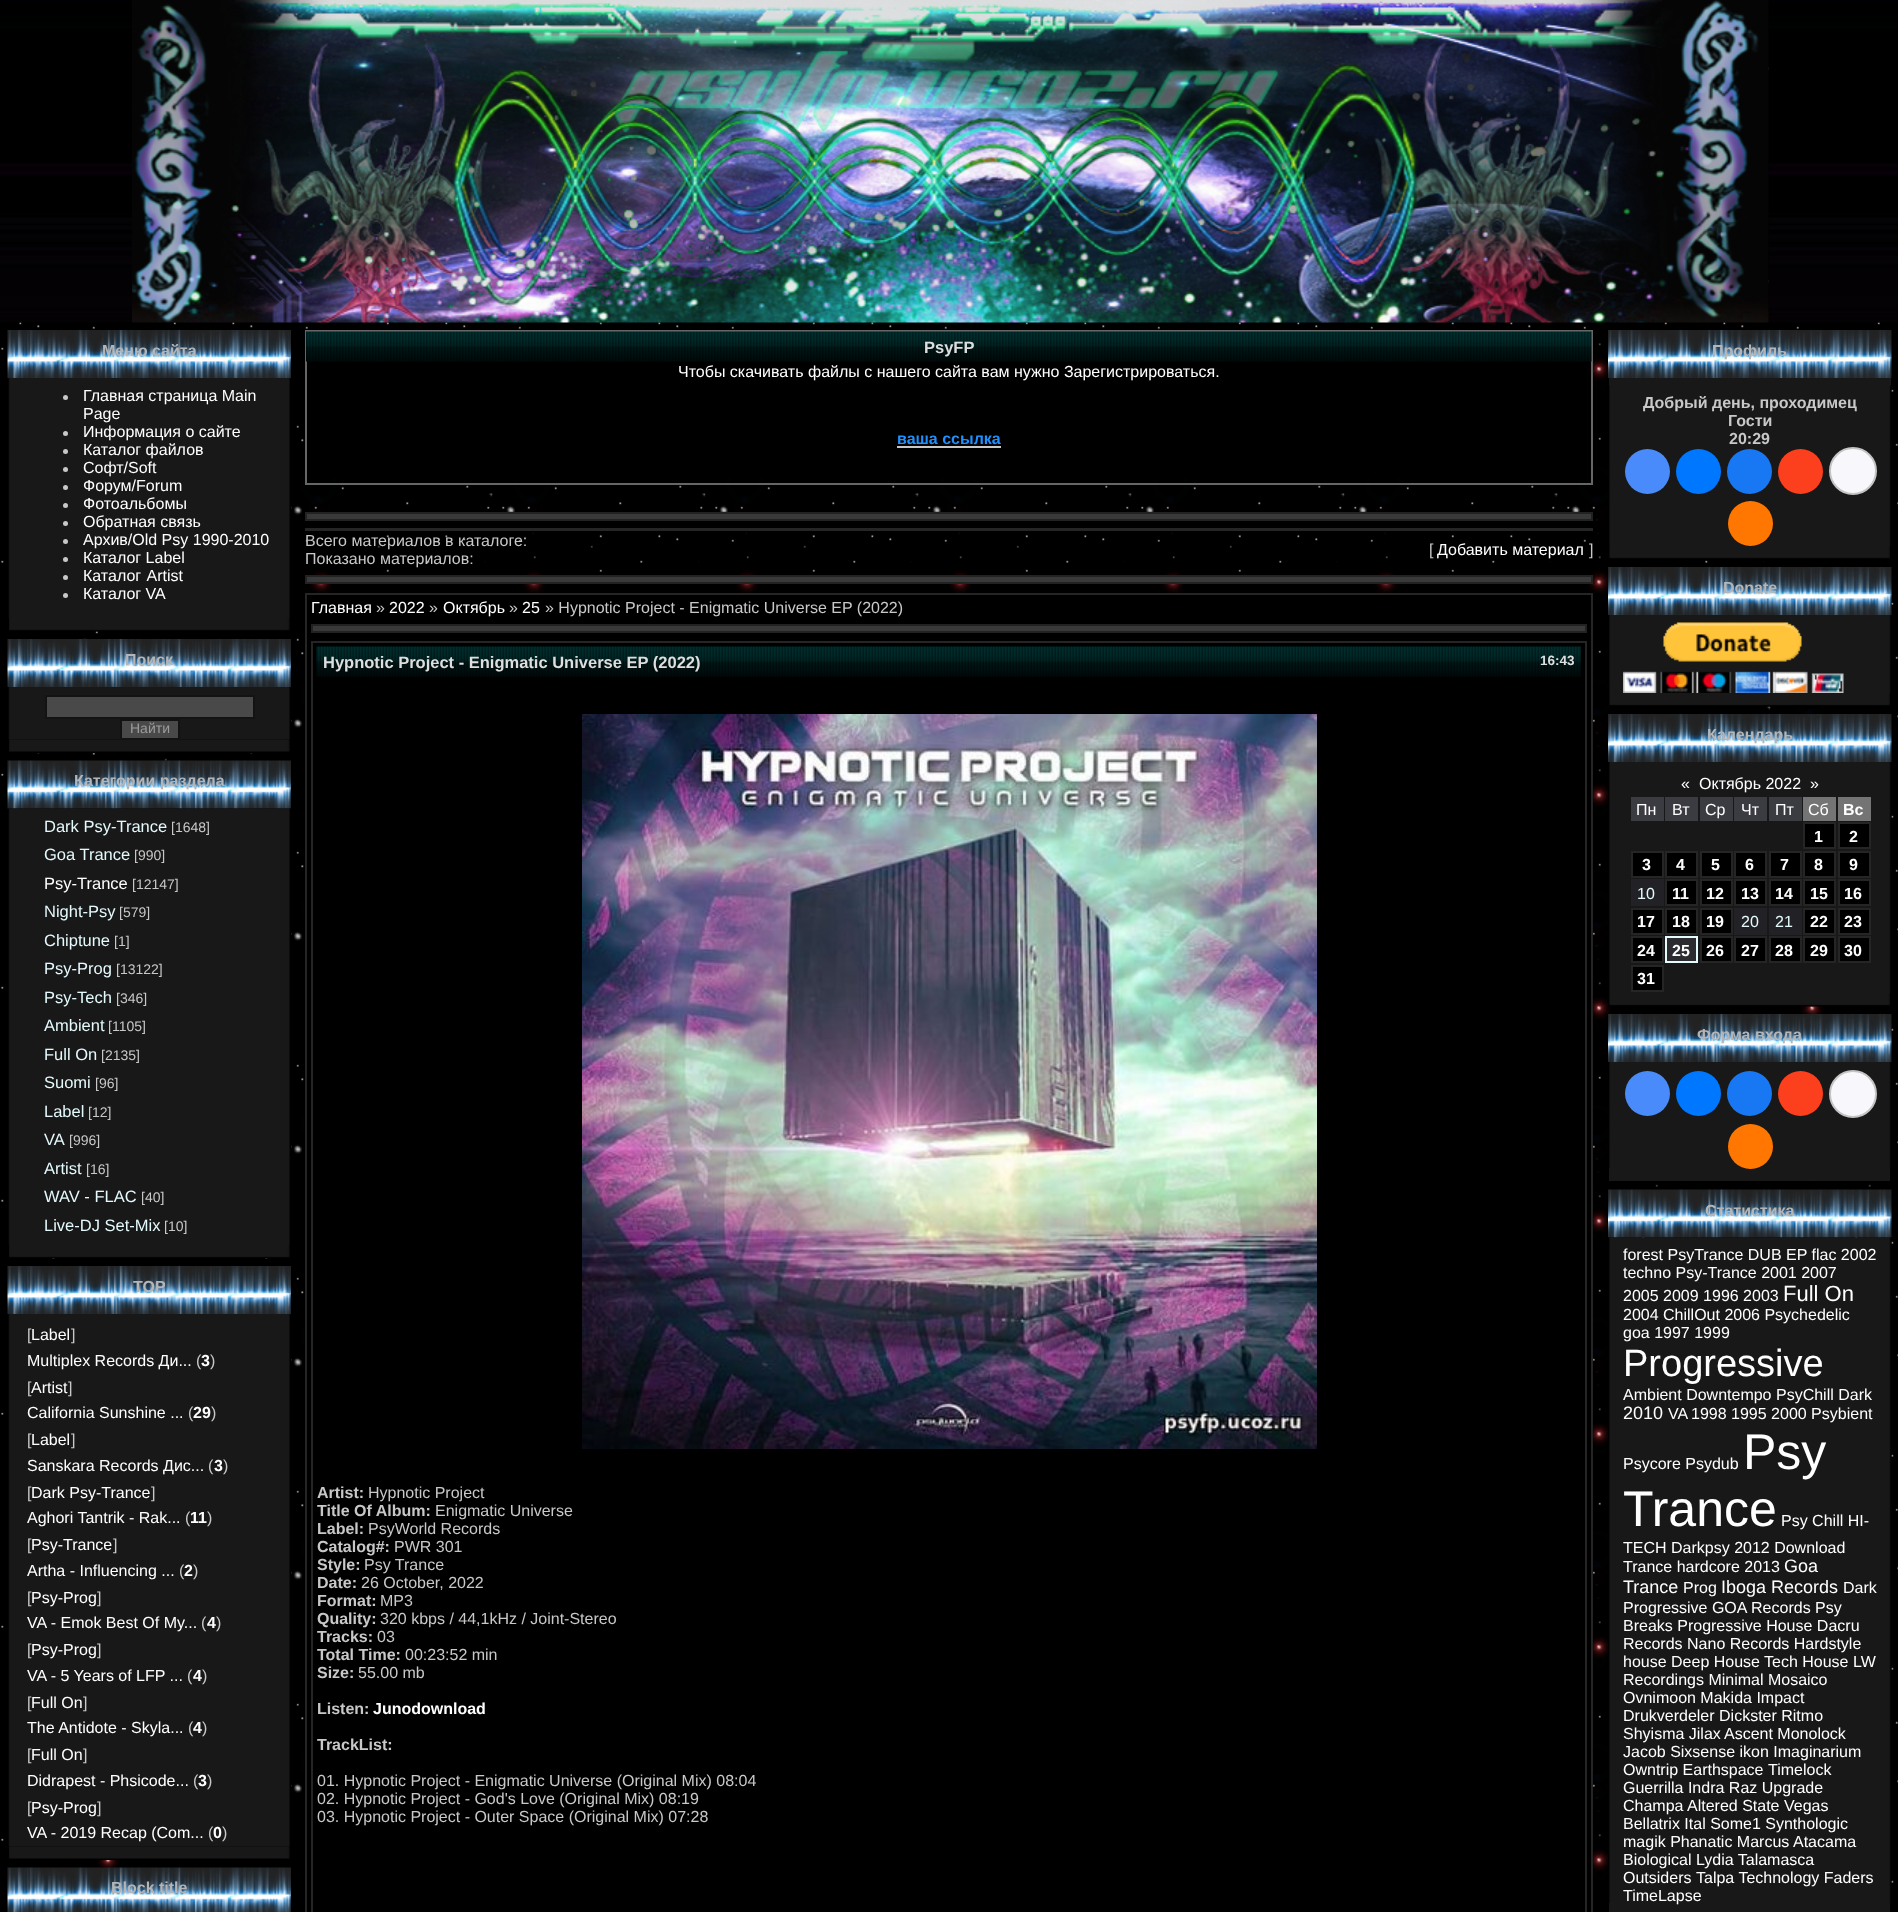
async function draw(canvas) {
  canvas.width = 1898
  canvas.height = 1912
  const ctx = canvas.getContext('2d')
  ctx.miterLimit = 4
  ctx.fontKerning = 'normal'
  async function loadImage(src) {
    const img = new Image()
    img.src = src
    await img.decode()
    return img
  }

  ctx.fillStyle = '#000'
  ctx.fillRect(0, 0, 1898, 1912)
  ctx.drawImage(await loadImage('image0.png'), 1, 0, 1897, 1912)
  ctx.drawImage(await loadImage('image1.png'), 0, 0, 132, 323)
  ctx.drawImage(await loadImage('image3.png'), 1768, 0, 130, 323)
  ctx.drawImage(await loadImage('image2.png'), 132, 0, 1637, 323)
  ctx.drawImage(await loadImage('image4.png'), 7, 330, 284, 48)
  ctx.font = 'bold 16px Liberation Sans'
  ctx.fillStyle = '#b5b5b5'
  ctx.fillText('Меню сайта', 102, 356)
  ctx.drawImage(await loadImage('image5.png'), 8, 378, 283, 240)
  ctx.fillStyle = '#c8c8c8'
  ctx.beginPath()
  ctx.arc(65.5, 397.5, 2.5, 0, 2 * Math.PI)
  ctx.fill()
  ctx.font = '16px Liberation Sans'
  ctx.fillStyle = '#fff'
  ctx.fillText('Главная страница Main', 83, 401)
  ctx.fillText('Page', 83, 419)
  ctx.fillStyle = '#c8c8c8'
  ctx.beginPath()
  ctx.arc(65.5, 433.5, 2.5, 0, 2 * Math.PI)
  ctx.fill()
  ctx.fillStyle = '#fff'
  ctx.fillText('Информация о сайте', 83, 437)
  ctx.fillStyle = '#c8c8c8'
  ctx.beginPath()
  ctx.arc(65.5, 451.5, 2.5, 0, 2 * Math.PI)
  ctx.fill()
  ctx.fillStyle = '#fff'
  ctx.fillText('Каталог файлов', 83, 455)
  ctx.fillStyle = '#c8c8c8'
  ctx.beginPath()
  ctx.arc(65.5, 469.5, 2.5, 0, 2 * Math.PI)
  ctx.fill()
  ctx.fillStyle = '#fff'
  ctx.fillText('Софт/Soft', 83, 473)
  ctx.fillStyle = '#c8c8c8'
  ctx.beginPath()
  ctx.arc(65.5, 487.5, 2.5, 0, 2 * Math.PI)
  ctx.fill()
  ctx.fillStyle = '#fff'
  ctx.fillText('Форум/Forum', 83, 491)
  ctx.fillStyle = '#c8c8c8'
  ctx.beginPath()
  ctx.arc(65.5, 505.5, 2.5, 0, 2 * Math.PI)
  ctx.fill()
  ctx.fillStyle = '#fff'
  ctx.fillText('Фотоальбомы', 83, 509)
  ctx.fillStyle = '#c8c8c8'
  ctx.beginPath()
  ctx.arc(65.5, 523.5, 2.5, 0, 2 * Math.PI)
  ctx.fill()
  ctx.fillStyle = '#fff'
  ctx.fillText('Обратная связь', 83, 527)
  ctx.fillStyle = '#c8c8c8'
  ctx.beginPath()
  ctx.arc(65.5, 541.5, 2.5, 0, 2 * Math.PI)
  ctx.fill()
  ctx.fillStyle = '#fff'
  ctx.fillText('Архив/Old Psy 1990-2010', 83, 545)
  ctx.fillStyle = '#c8c8c8'
  ctx.beginPath()
  ctx.arc(65.5, 559.5, 2.5, 0, 2 * Math.PI)
  ctx.fill()
  ctx.fillStyle = '#fff'
  ctx.fillText('Каталог Label', 83, 563)
  ctx.fillStyle = '#c8c8c8'
  ctx.beginPath()
  ctx.arc(65.5, 577.5, 2.5, 0, 2 * Math.PI)
  ctx.fill()
  ctx.wordSpacing = '1px'
  ctx.fillStyle = '#fff'
  ctx.fillText('Каталог Artist', 83, 581)
  ctx.fillStyle = '#c8c8c8'
  ctx.beginPath()
  ctx.arc(65.5, 595.5, 2.5, 0, 2 * Math.PI)
  ctx.fill()
  ctx.wordSpacing = '0px'
  ctx.fillStyle = '#fff'
  ctx.fillText('Каталог VA', 83, 599)
  ctx.drawImage(await loadImage('image6.png'), 9, 618, 281, 14)
  ctx.drawImage(await loadImage('image4.png'), 7, 639, 284, 48)
  ctx.font = 'bold 16px Liberation Sans'
  ctx.fillStyle = '#b5b5b5'
  ctx.fillText('Поиск', 125, 665)
  ctx.drawImage(await loadImage('image7.png'), 8, 687, 283, 53)
  ctx.fillStyle = '#494949'
  ctx.beginPath()
  ctx.rect(46, 696, 208, 22)
  ctx.fill()
  ctx.strokeStyle = '#131313'
  ctx.lineWidth = 2
  ctx.stroke()
  ctx.drawImage(await loadImage('image8.png'), 9, 739, 281, 14)
  ctx.beginPath()
  ctx.rect(121, 720, 58, 19)
  ctx.fill()
  ctx.stroke()
  ctx.font = '14px Liberation Sans'
  ctx.fillStyle = '#9d9c9c'
  ctx.fillText('Найти', 130, 733)
  ctx.drawImage(await loadImage('image9.png'), 7, 760, 284, 49)
  ctx.font = 'bold 16px Liberation Sans'
  ctx.fillStyle = '#b5b5b5'
  ctx.fillText('Категории раздела', 74, 786)
  ctx.drawImage(await loadImage('image10.png'), 8, 808, 283, 437)
  ctx.font = '16.5px Liberation Sans'
  ctx.fillStyle = '#e4fafd'
  ctx.fillText('Dark Psy-Trance', 44, 832)
  ctx.font = '14px Liberation Sans'
  ctx.fillStyle = '#c8c8c8'
  ctx.fillText('[1648]', 171, 832)
  ctx.font = '16.5px Liberation Sans'
  ctx.fillStyle = '#e4fafd'
  ctx.fillText('Goa Trance', 44, 860)
  ctx.font = '14px Liberation Sans'
  ctx.fillStyle = '#c8c8c8'
  ctx.fillText('[990]', 134, 860)
  ctx.font = '16.5px Liberation Sans'
  ctx.fillStyle = '#fff'
  ctx.fillText('Psy-Trance', 44, 889)
  ctx.font = '14px Liberation Sans'
  ctx.fillStyle = '#c8c8c8'
  ctx.fillText('[12147]', 132, 889)
  ctx.font = '16.5px Liberation Sans'
  ctx.fillStyle = '#e4fafd'
  ctx.fillText('Night-Psy', 44, 917)
  ctx.font = '14px Liberation Sans'
  ctx.fillStyle = '#c8c8c8'
  ctx.fillText('[579]', 119, 917)
  ctx.font = '16.5px Liberation Sans'
  ctx.fillStyle = '#e4fafd'
  ctx.fillText('Chiptune', 44, 946)
  ctx.font = '14px Liberation Sans'
  ctx.fillStyle = '#c8c8c8'
  ctx.fillText('[1]', 114, 946)
  ctx.font = '16.5px Liberation Sans'
  ctx.fillStyle = '#e4fafd'
  ctx.fillText('Psy-Prog', 44, 974)
  ctx.font = '14px Liberation Sans'
  ctx.fillStyle = '#c8c8c8'
  ctx.fillText('[13122]', 116, 974)
  ctx.font = '16.5px Liberation Sans'
  ctx.fillStyle = '#e4fafd'
  ctx.fillText('Psy-Tech', 44, 1003)
  ctx.font = '14px Liberation Sans'
  ctx.fillStyle = '#c8c8c8'
  ctx.fillText('[346]', 116, 1003)
  ctx.font = '16.5px Liberation Sans'
  ctx.fillStyle = '#e4fafd'
  ctx.fillText('Ambient', 44, 1031)
  ctx.font = '14px Liberation Sans'
  ctx.fillStyle = '#c8c8c8'
  ctx.fillText('[1105]', 108, 1031)
  ctx.font = '16.5px Liberation Sans'
  ctx.fillStyle = '#e4fafd'
  ctx.fillText('Full On', 44, 1060)
  ctx.font = '14px Liberation Sans'
  ctx.fillStyle = '#c8c8c8'
  ctx.fillText('[2135]', 101, 1060)
  ctx.font = '16.5px Liberation Sans'
  ctx.fillStyle = '#e4fafd'
  ctx.fillText('Suomi', 44, 1088)
  ctx.font = '14px Liberation Sans'
  ctx.fillStyle = '#c8c8c8'
  ctx.fillText('[96]', 95, 1088)
  ctx.font = '16.5px Liberation Sans'
  ctx.fillStyle = '#e4fafd'
  ctx.fillText('Label', 44, 1117)
  ctx.font = '14px Liberation Sans'
  ctx.fillStyle = '#c8c8c8'
  ctx.fillText('[12]', 88, 1117)
  ctx.font = '16.5px Liberation Sans'
  ctx.fillStyle = '#e4fafd'
  ctx.fillText('VA', 44, 1145)
  ctx.font = '14px Liberation Sans'
  ctx.fillStyle = '#c8c8c8'
  ctx.fillText('[996]', 69, 1145)
  ctx.font = '16.5px Liberation Sans'
  ctx.fillStyle = '#e4fafd'
  ctx.fillText('Artist', 44, 1174)
  ctx.font = '14px Liberation Sans'
  ctx.fillStyle = '#c8c8c8'
  ctx.fillText('[16]', 86, 1174)
  ctx.font = '16.5px Liberation Sans'
  ctx.fillStyle = '#e4fafd'
  ctx.fillText('WAV - FLAC', 44, 1202)
  ctx.font = '14px Liberation Sans'
  ctx.fillStyle = '#c8c8c8'
  ctx.fillText('[40]', 141, 1202)
  ctx.font = '16.5px Liberation Sans'
  ctx.fillStyle = '#e4fafd'
  ctx.fillText('Live-DJ Set-Mix', 44, 1231)
  ctx.font = '14px Liberation Sans'
  ctx.fillStyle = '#c8c8c8'
  ctx.fillText('[10]', 164, 1231)
  ctx.drawImage(await loadImage('image11.png'), 9, 1245, 281, 14)
  ctx.drawImage(await loadImage('image4.png'), 7, 1266, 284, 48)
  ctx.font = 'bold 16px Liberation Sans'
  ctx.fillStyle = '#b5b5b5'
  ctx.fillText('TOP', 133, 1292)
  ctx.drawImage(await loadImage('image12.png'), 8, 1314, 283, 533)
  ctx.font = '16px Liberation Sans'
  ctx.fillStyle = '#c8c8c8'
  ctx.fillText('[', 27, 1340)
  ctx.fillStyle = '#fff'
  ctx.fillText('Label', 31, 1340)
  ctx.fillStyle = '#c8c8c8'
  ctx.fillText(']', 71, 1340)
  ctx.fillStyle = '#fff'
  ctx.fillText('Multiplex Records Ди...', 27, 1366)
  ctx.fillStyle = '#c8c8c8'
  ctx.fillText('(', 196, 1366)
  ctx.font = 'bold 16px Liberation Sans'
  ctx.fillStyle = '#fff'
  ctx.fillText('3', 201, 1366)
  ctx.font = '16px Liberation Sans'
  ctx.fillStyle = '#c8c8c8'
  ctx.fillText(')', 210, 1366)
  ctx.fillText('[', 27, 1393)
  ctx.fillStyle = '#fff'
  ctx.fillText('Artist', 31, 1393)
  ctx.fillStyle = '#c8c8c8'
  ctx.fillText(']', 68, 1393)
  ctx.fillStyle = '#fff'
  ctx.fillText('California Sunshine ...', 27, 1418)
  ctx.fillStyle = '#c8c8c8'
  ctx.fillText('(', 188, 1418)
  ctx.font = 'bold 16px Liberation Sans'
  ctx.fillStyle = '#fff'
  ctx.fillText('29', 193, 1418)
  ctx.font = '16px Liberation Sans'
  ctx.fillStyle = '#c8c8c8'
  ctx.fillText(')', 211, 1418)
  ctx.fillText('[', 27, 1445)
  ctx.fillStyle = '#fff'
  ctx.fillText('Label', 31, 1445)
  ctx.fillStyle = '#c8c8c8'
  ctx.fillText(']', 71, 1445)
  ctx.fillStyle = '#fff'
  ctx.fillText('Sanskara Records Дис...', 27, 1471)
  ctx.fillStyle = '#c8c8c8'
  ctx.fillText('(', 208, 1471)
  ctx.font = 'bold 16px Liberation Sans'
  ctx.fillStyle = '#fff'
  ctx.fillText('3', 214, 1471)
  ctx.font = '16px Liberation Sans'
  ctx.fillStyle = '#c8c8c8'
  ctx.fillText(')', 223, 1471)
  ctx.fillText('[', 27, 1498)
  ctx.fillStyle = '#fff'
  ctx.fillText('Dark Psy-Trance', 31, 1498)
  ctx.fillStyle = '#c8c8c8'
  ctx.fillText(']', 151, 1498)
  ctx.fillStyle = '#fff'
  ctx.fillText('Aghori Tantrik - Rak...', 27, 1523)
  ctx.fillStyle = '#c8c8c8'
  ctx.fillText('(', 185, 1523)
  ctx.font = 'bold 16px Liberation Sans'
  ctx.fillStyle = '#fff'
  ctx.fillText('11', 190, 1523)
  ctx.font = '16px Liberation Sans'
  ctx.fillStyle = '#c8c8c8'
  ctx.fillText(')', 207, 1523)
  ctx.fillText('[', 27, 1550)
  ctx.fillStyle = '#fff'
  ctx.fillText('Psy-Trance', 31, 1550)
  ctx.fillStyle = '#c8c8c8'
  ctx.fillText(']', 113, 1550)
  ctx.fillStyle = '#fff'
  ctx.fillText('Artha - Influencing ...', 27, 1576)
  ctx.fillStyle = '#c8c8c8'
  ctx.fillText('(', 179, 1576)
  ctx.font = 'bold 16px Liberation Sans'
  ctx.fillStyle = '#fff'
  ctx.fillText('2', 184, 1576)
  ctx.font = '16px Liberation Sans'
  ctx.fillStyle = '#c8c8c8'
  ctx.fillText(')', 193, 1576)
  ctx.fillText('[', 27, 1603)
  ctx.fillStyle = '#fff'
  ctx.fillText('Psy-Prog', 31, 1603)
  ctx.fillStyle = '#c8c8c8'
  ctx.fillText(']', 97, 1603)
  ctx.fillStyle = '#fff'
  ctx.fillText('VA - Emok Best Of My...', 27, 1628)
  ctx.fillStyle = '#c8c8c8'
  ctx.fillText('(', 201, 1628)
  ctx.font = 'bold 16px Liberation Sans'
  ctx.fillStyle = '#fff'
  ctx.fillText('4', 207, 1628)
  ctx.font = '16px Liberation Sans'
  ctx.fillStyle = '#c8c8c8'
  ctx.fillText(')', 216, 1628)
  ctx.fillText('[', 27, 1655)
  ctx.fillStyle = '#fff'
  ctx.fillText('Psy-Prog', 31, 1655)
  ctx.fillStyle = '#c8c8c8'
  ctx.fillText(']', 97, 1655)
  ctx.fillStyle = '#fff'
  ctx.fillText('VA - 5 Years of LFP ...', 27, 1681)
  ctx.fillStyle = '#c8c8c8'
  ctx.fillText('(', 187, 1681)
  ctx.font = 'bold 16px Liberation Sans'
  ctx.fillStyle = '#fff'
  ctx.fillText('4', 193, 1681)
  ctx.font = '16px Liberation Sans'
  ctx.fillStyle = '#c8c8c8'
  ctx.fillText(')', 202, 1681)
  ctx.fillText('[', 27, 1708)
  ctx.fillStyle = '#fff'
  ctx.fillText('Full On', 31, 1708)
  ctx.fillStyle = '#c8c8c8'
  ctx.fillText(']', 83, 1708)
  ctx.fillStyle = '#fff'
  ctx.fillText('The Antidote - Skyla...', 27, 1733)
  ctx.fillStyle = '#c8c8c8'
  ctx.fillText('(', 188, 1733)
  ctx.font = 'bold 16px Liberation Sans'
  ctx.fillStyle = '#fff'
  ctx.fillText('4', 193, 1733)
  ctx.font = '16px Liberation Sans'
  ctx.fillStyle = '#c8c8c8'
  ctx.fillText(')', 202, 1733)
  ctx.fillText('[', 27, 1760)
  ctx.fillStyle = '#fff'
  ctx.fillText('Full On', 31, 1760)
  ctx.fillStyle = '#c8c8c8'
  ctx.fillText(']', 83, 1760)
  ctx.fillStyle = '#fff'
  ctx.fillText('Didrapest - Phsicode...', 27, 1786)
  ctx.fillStyle = '#c8c8c8'
  ctx.fillText('(', 193, 1786)
  ctx.font = 'bold 16px Liberation Sans'
  ctx.fillStyle = '#fff'
  ctx.fillText('3', 198, 1786)
  ctx.font = '16px Liberation Sans'
  ctx.fillStyle = '#c8c8c8'
  ctx.fillText(')', 207, 1786)
  ctx.fillText('[', 27, 1813)
  ctx.fillStyle = '#fff'
  ctx.fillText('Psy-Prog', 31, 1813)
  ctx.fillStyle = '#c8c8c8'
  ctx.fillText(']', 97, 1813)
  ctx.fillStyle = '#fff'
  ctx.fillText('VA - 2019 Recap (Com...', 27, 1838)
  ctx.fillStyle = '#c8c8c8'
  ctx.fillText('(', 208, 1838)
  ctx.font = 'bold 16px Liberation Sans'
  ctx.fillStyle = '#fff'
  ctx.fillText('0', 213, 1838)
  ctx.font = '16px Liberation Sans'
  ctx.fillStyle = '#c8c8c8'
  ctx.fillText(')', 222, 1838)
  ctx.drawImage(await loadImage('image8.png'), 9, 1846, 281, 14)
  ctx.drawImage(await loadImage('image13.png'), 7, 1867, 284, 45)
  ctx.font = 'bold 16px Liberation Sans'
  ctx.fillStyle = '#b5b5b5'
  ctx.fillText('Block title', 111, 1893)
  ctx.fillStyle = '#000'
  ctx.fillRect(308, 361, 1283, 117)
  ctx.strokeStyle = '#666'
  ctx.strokeRect(306, 331, 1286, 153)
  ctx.drawImage(await loadImage('image14.png'), 306, 331, 1286, 31)
  ctx.font = 'bold 16.5px Liberation Sans'
  ctx.fillStyle = '#dedede'
  ctx.fillText('PsyFP', 924, 353)
  ctx.font = '16px Liberation Sans'
  ctx.fillStyle = '#fff'
  ctx.fillText('Чтобы скачивать файлы с нашего сайта вам нужно Зарегистрироваться.', 678, 377)
  ctx.font = 'bold 16px Liberation Sans'
  ctx.fillStyle = '#1e90ff'
  ctx.fillText('ваша ссылка', 897, 444)
  ctx.fillStyle = '#c8c8c8'
  ctx.fillRect(897, 446, 104, 2)
  ctx.fillStyle = '#393939'
  ctx.beginPath()
  ctx.rect(306, 513, 1286, 7)
  ctx.fill()
  ctx.strokeStyle = '#222'
  ctx.stroke()
  ctx.fillStyle = '#252525'
  ctx.fillRect(305, 528, 1288, 3)
  ctx.font = '16px Liberation Sans'
  ctx.fillStyle = '#c8c8c8'
  ctx.fillText('Всего материалов в каталоге:', 305, 546)
  ctx.fillText('Показано материалов:', 305, 564)
  ctx.fillText('[', 1429, 555)
  ctx.fillStyle = '#fff'
  ctx.fillText('Добавить материал', 1437, 555)
  ctx.fillStyle = '#c8c8c8'
  ctx.fillText(']', 1589, 555)
  ctx.fillStyle = '#393939'
  ctx.beginPath()
  ctx.rect(306, 576, 1286, 7)
  ctx.fill()
  ctx.stroke()
  ctx.fillStyle = '#000'
  ctx.beginPath()
  ctx.rect(306, 594, 1286, 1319)
  ctx.fill()
  ctx.strokeStyle = '#252525'
  ctx.stroke()
  ctx.fillStyle = '#fff'
  ctx.fillText('Главная', 311, 613)
  ctx.fillStyle = '#c8c8c8'
  ctx.fillText('»', 376, 613)
  ctx.fillStyle = '#fff'
  ctx.fillText('2022', 389, 613)
  ctx.fillStyle = '#c8c8c8'
  ctx.fillText('»', 429, 613)
  ctx.fillStyle = '#fff'
  ctx.fillText('Октябрь', 443, 613)
  ctx.fillStyle = '#c8c8c8'
  ctx.fillText('»', 509, 613)
  ctx.fillStyle = '#fff'
  ctx.fillText('25', 522, 613)
  ctx.fillStyle = '#c8c8c8'
  ctx.fillText('» Hypnotic Project - Enigmatic Universe EP (2022)', 545, 613)
  ctx.fillStyle = '#393939'
  ctx.beginPath()
  ctx.rect(312, 625, 1274, 7)
  ctx.fill()
  ctx.strokeStyle = '#222'
  ctx.stroke()
  ctx.strokeStyle = '#252525'
  ctx.strokeRect(312, 642, 1274, 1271)
  ctx.drawImage(await loadImage('image15.png'), 316, 646, 1265, 31)
  ctx.font = 'bold 16.5px Liberation Sans'
  ctx.fillStyle = '#dedede'
  ctx.fillText('Hypnotic Project - Enigmatic Universe EP (2022)', 323, 668)
  ctx.font = 'bold 13.5px Liberation Sans'
  ctx.fillText('16:43', 1540, 665)
  ctx.drawImage(await loadImage('image16.png'), 582, 714, 735, 735)
  ctx.font = 'bold 16px Liberation Sans'
  ctx.fillStyle = '#c8c8c8'
  ctx.fillText('Artist:', 317, 1498)
  ctx.font = '16px Liberation Sans'
  ctx.fillText('Hypnotic Project', 368, 1498)
  ctx.font = 'bold 16px Liberation Sans'
  ctx.fillText('Title Of Album:', 317, 1516)
  ctx.font = '16px Liberation Sans'
  ctx.fillText('Enigmatic Universe', 435, 1516)
  ctx.font = 'bold 16px Liberation Sans'
  ctx.fillText('Label:', 317, 1534)
  ctx.font = '16px Liberation Sans'
  ctx.fillText('PsyWorld Records', 368, 1534)
  ctx.font = 'bold 16px Liberation Sans'
  ctx.fillText('Catalog#:', 317, 1552)
  ctx.font = '16px Liberation Sans'
  ctx.fillText('PWR 301', 394, 1552)
  ctx.font = 'bold 16px Liberation Sans'
  ctx.fillText('Style:', 317, 1570)
  ctx.font = '16px Liberation Sans'
  ctx.fillText('Psy Trance', 364, 1570)
  ctx.font = 'bold 16px Liberation Sans'
  ctx.fillText('Date:', 317, 1588)
  ctx.font = '16px Liberation Sans'
  ctx.fillText('26 October, 2022', 361, 1588)
  ctx.font = 'bold 16px Liberation Sans'
  ctx.fillText('Format:', 317, 1606)
  ctx.font = '16px Liberation Sans'
  ctx.fillText('MP3', 380, 1606)
  ctx.font = 'bold 16px Liberation Sans'
  ctx.fillText('Quality:', 317, 1624)
  ctx.font = '16px Liberation Sans'
  ctx.fillText('320 kbps / 44,1kHz / Joint-Stereo', 380, 1624)
  ctx.font = 'bold 16px Liberation Sans'
  ctx.fillText('Tracks:', 317, 1642)
  ctx.font = '16px Liberation Sans'
  ctx.fillText('03', 377, 1642)
  ctx.font = 'bold 16px Liberation Sans'
  ctx.fillText('Total Time:', 317, 1660)
  ctx.font = '16px Liberation Sans'
  ctx.fillText('00:23:52 min', 405, 1660)
  ctx.font = 'bold 16px Liberation Sans'
  ctx.fillText('Size:', 317, 1678)
  ctx.font = '16px Liberation Sans'
  ctx.fillText('55.00 mb', 358, 1678)
  ctx.font = 'bold 16px Liberation Sans'
  ctx.fillText('Listen:', 317, 1714)
  ctx.fillStyle = '#fff'
  ctx.fillText('Junodownload', 373, 1714)
  ctx.fillStyle = '#c8c8c8'
  ctx.fillText('TrackList:', 317, 1750)
  ctx.font = '16px Liberation Sans'
  ctx.fillText('01. Hypnotic Project - Enigmatic Universe (Original Mix) 08:04', 317, 1786)
  ctx.fillText('02. Hypnotic Project - God\'s Love (Original Mix) 08:19', 317, 1804)
  ctx.fillText('03. Hypnotic Project - Outer Space (Original Mix) 07:28', 317, 1822)
  ctx.drawImage(await loadImage('image17.png'), 1608, 330, 284, 48)
  ctx.font = 'bold 16px Liberation Sans'
  ctx.fillStyle = '#b5b5b5'
  ctx.fillText('Профиль', 1712, 356)
  ctx.fillStyle = '#181818'
  ctx.fillRect(1609, 378, 282, 8)
  ctx.drawImage(await loadImage('image18.png'), 1609, 385, 283, 161)
  ctx.fillStyle = '#c8c8c8'
  ctx.fillText('Добрый день, проходимец', 1643, 408)
  ctx.fillText('Гости', 1728, 426)
  ctx.fillText('20:29', 1729, 444)
  ctx.fillStyle = '#498bfa'
  ctx.beginPath()
  ctx.arc(1647.5, 471.5, 22.5, 0, 2 * Math.PI)
  ctx.fill()
  ctx.fillStyle = '#07f'
  ctx.beginPath()
  ctx.arc(1698.5, 471.5, 22.5, 0, 2 * Math.PI)
  ctx.fill()
  ctx.fillStyle = '#1877f2'
  ctx.beginPath()
  ctx.arc(1749.5, 471.5, 22.5, 0, 2 * Math.PI)
  ctx.fill()
  ctx.fillStyle = '#fc3f1d'
  ctx.beginPath()
  ctx.arc(1800.5, 471.5, 22.5, 0, 2 * Math.PI)
  ctx.fill()
  ctx.fillStyle = '#f8f8fc'
  ctx.beginPath()
  ctx.arc(1853, 471, 23, 0, 2 * Math.PI)
  ctx.fill()
  ctx.strokeStyle = '#c4c4c4'
  ctx.stroke()
  ctx.fillStyle = '#f70'
  ctx.beginPath()
  ctx.arc(1750.5, 523.5, 22.5, 0, 2 * Math.PI)
  ctx.fill()
  ctx.drawImage(await loadImage('image19.png'), 1609, 546, 281, 13)
  ctx.drawImage(await loadImage('image20.png'), 1608, 567, 284, 48)
  ctx.fillStyle = '#b5b5b5'
  ctx.fillText('Donate', 1723, 593)
  ctx.drawImage(await loadImage('image21.png'), 1609, 615, 282, 78)
  ctx.drawImage(await loadImage('image22.png'), 1623, 622, 221, 71)
  ctx.drawImage(await loadImage('image23.png'), 1609, 693, 281, 14)
  ctx.drawImage(await loadImage('image17.png'), 1608, 714, 284, 48)
  ctx.fillText('Календарь', 1707, 740)
  ctx.drawImage(await loadImage('image24.png'), 1608, 762, 284, 231)
  ctx.font = '16px Liberation Sans'
  ctx.fillStyle = '#fff'
  ctx.fillText('«', 1681, 789)
  ctx.fillText('Октябрь 2022', 1699, 789)
  ctx.fillText('»', 1810, 789)
  ctx.fillStyle = '#3b3b42'
  ctx.fillRect(1631, 797, 33, 24)
  ctx.fillStyle = '#fff'
  ctx.fillText('Пн', 1636, 815)
  ctx.fillStyle = '#3b3b42'
  ctx.fillRect(1665, 797, 33, 24)
  ctx.fillStyle = '#fff'
  ctx.fillText('Вт', 1672, 815)
  ctx.fillStyle = '#3b3b42'
  ctx.fillRect(1700, 797, 33, 24)
  ctx.fillStyle = '#fff'
  ctx.fillText('Ср', 1705, 815)
  ctx.fillStyle = '#3b3b42'
  ctx.fillRect(1734, 797, 33, 24)
  ctx.fillStyle = '#fff'
  ctx.fillText('Чт', 1741, 815)
  ctx.fillStyle = '#3b3b42'
  ctx.fillRect(1769, 797, 33, 24)
  ctx.fillStyle = '#fff'
  ctx.fillText('Пт', 1775, 815)
  ctx.fillStyle = '#747474'
  ctx.fillRect(1803, 797, 33, 24)
  ctx.fillStyle = '#fff'
  ctx.fillText('Сб', 1808, 815)
  ctx.fillStyle = '#747474'
  ctx.fillRect(1838, 797, 33, 24)
  ctx.font = 'bold 16px Liberation Sans'
  ctx.fillStyle = '#fff'
  ctx.fillText('Вс', 1843, 815)
  ctx.fillStyle = '#000'
  ctx.beginPath()
  ctx.rect(1804, 823, 31, 25)
  ctx.fill()
  ctx.strokeStyle = '#252525'
  ctx.stroke()
  ctx.fillStyle = '#fff'
  ctx.fillText('1', 1814, 842)
  ctx.fillStyle = '#000'
  ctx.beginPath()
  ctx.rect(1839, 823, 31, 25)
  ctx.fill()
  ctx.stroke()
  ctx.fillStyle = '#fff'
  ctx.fillText('2', 1849, 842)
  ctx.fillStyle = '#000'
  ctx.beginPath()
  ctx.rect(1632, 852, 31, 25)
  ctx.fill()
  ctx.stroke()
  ctx.fillStyle = '#fff'
  ctx.fillText('3', 1642, 870)
  ctx.fillStyle = '#000'
  ctx.beginPath()
  ctx.rect(1666, 852, 31, 25)
  ctx.fill()
  ctx.stroke()
  ctx.fillStyle = '#fff'
  ctx.fillText('4', 1676, 870)
  ctx.fillStyle = '#000'
  ctx.beginPath()
  ctx.rect(1701, 852, 31, 25)
  ctx.fill()
  ctx.stroke()
  ctx.fillStyle = '#fff'
  ctx.fillText('5', 1711, 870)
  ctx.fillStyle = '#000'
  ctx.beginPath()
  ctx.rect(1735, 852, 31, 25)
  ctx.fill()
  ctx.stroke()
  ctx.fillStyle = '#fff'
  ctx.fillText('6', 1745, 870)
  ctx.fillStyle = '#000'
  ctx.beginPath()
  ctx.rect(1770, 852, 31, 25)
  ctx.fill()
  ctx.stroke()
  ctx.fillStyle = '#fff'
  ctx.fillText('7', 1780, 870)
  ctx.fillStyle = '#000'
  ctx.beginPath()
  ctx.rect(1804, 852, 31, 25)
  ctx.fill()
  ctx.stroke()
  ctx.fillStyle = '#fff'
  ctx.fillText('8', 1814, 870)
  ctx.fillStyle = '#000'
  ctx.beginPath()
  ctx.rect(1839, 852, 31, 25)
  ctx.fill()
  ctx.stroke()
  ctx.fillStyle = '#fff'
  ctx.fillText('9', 1849, 870)
  ctx.fillStyle = '#222226'
  ctx.fillRect(1631, 879, 33, 27)
  ctx.font = '16px Liberation Sans'
  ctx.fillStyle = '#e4fafd'
  ctx.fillText('10', 1637, 899)
  ctx.fillStyle = '#000'
  ctx.beginPath()
  ctx.rect(1666, 880, 31, 25)
  ctx.fill()
  ctx.stroke()
  ctx.font = 'bold 16px Liberation Sans'
  ctx.fillStyle = '#fff'
  ctx.fillText('11', 1672, 899)
  ctx.fillStyle = '#000'
  ctx.beginPath()
  ctx.rect(1701, 880, 31, 25)
  ctx.fill()
  ctx.stroke()
  ctx.fillStyle = '#fff'
  ctx.fillText('12', 1706, 899)
  ctx.fillStyle = '#000'
  ctx.beginPath()
  ctx.rect(1735, 880, 31, 25)
  ctx.fill()
  ctx.stroke()
  ctx.fillStyle = '#fff'
  ctx.fillText('13', 1741, 899)
  ctx.fillStyle = '#000'
  ctx.beginPath()
  ctx.rect(1770, 880, 31, 25)
  ctx.fill()
  ctx.stroke()
  ctx.fillStyle = '#fff'
  ctx.fillText('14', 1775, 899)
  ctx.fillStyle = '#000'
  ctx.beginPath()
  ctx.rect(1804, 880, 31, 25)
  ctx.fill()
  ctx.stroke()
  ctx.fillStyle = '#fff'
  ctx.fillText('15', 1810, 899)
  ctx.fillStyle = '#000'
  ctx.beginPath()
  ctx.rect(1839, 880, 31, 25)
  ctx.fill()
  ctx.stroke()
  ctx.fillStyle = '#fff'
  ctx.fillText('16', 1844, 899)
  ctx.fillStyle = '#000'
  ctx.beginPath()
  ctx.rect(1632, 909, 31, 25)
  ctx.fill()
  ctx.stroke()
  ctx.fillStyle = '#fff'
  ctx.fillText('17', 1637, 927)
  ctx.fillStyle = '#000'
  ctx.beginPath()
  ctx.rect(1666, 909, 31, 25)
  ctx.fill()
  ctx.stroke()
  ctx.fillStyle = '#fff'
  ctx.fillText('18', 1672, 927)
  ctx.fillStyle = '#000'
  ctx.beginPath()
  ctx.rect(1701, 909, 31, 25)
  ctx.fill()
  ctx.stroke()
  ctx.fillStyle = '#fff'
  ctx.fillText('19', 1706, 927)
  ctx.fillStyle = '#222226'
  ctx.fillRect(1734, 908, 33, 27)
  ctx.font = '16px Liberation Sans'
  ctx.fillStyle = '#e4fafd'
  ctx.fillText('20', 1741, 927)
  ctx.fillStyle = '#222226'
  ctx.fillRect(1769, 908, 33, 27)
  ctx.fillStyle = '#e4fafd'
  ctx.fillText('21', 1775, 927)
  ctx.fillStyle = '#000'
  ctx.beginPath()
  ctx.rect(1804, 909, 31, 25)
  ctx.fill()
  ctx.stroke()
  ctx.font = 'bold 16px Liberation Sans'
  ctx.fillStyle = '#fff'
  ctx.fillText('22', 1810, 927)
  ctx.fillStyle = '#000'
  ctx.beginPath()
  ctx.rect(1839, 909, 31, 25)
  ctx.fill()
  ctx.stroke()
  ctx.fillStyle = '#fff'
  ctx.fillText('23', 1844, 927)
  ctx.fillStyle = '#000'
  ctx.beginPath()
  ctx.rect(1632, 937, 31, 25)
  ctx.fill()
  ctx.stroke()
  ctx.fillStyle = '#fff'
  ctx.fillText('24', 1637, 956)
  ctx.fillStyle = '#2b2b30'
  ctx.beginPath()
  ctx.rect(1666, 937, 31, 25)
  ctx.fill()
  ctx.strokeStyle = '#e4fafd'
  ctx.stroke()
  ctx.fillStyle = '#fff'
  ctx.fillText('25', 1672, 956)
  ctx.fillStyle = '#000'
  ctx.beginPath()
  ctx.rect(1701, 937, 31, 25)
  ctx.fill()
  ctx.strokeStyle = '#252525'
  ctx.stroke()
  ctx.fillStyle = '#fff'
  ctx.fillText('26', 1706, 956)
  ctx.fillStyle = '#000'
  ctx.beginPath()
  ctx.rect(1735, 937, 31, 25)
  ctx.fill()
  ctx.stroke()
  ctx.fillStyle = '#fff'
  ctx.fillText('27', 1741, 956)
  ctx.fillStyle = '#000'
  ctx.beginPath()
  ctx.rect(1770, 937, 31, 25)
  ctx.fill()
  ctx.stroke()
  ctx.fillStyle = '#fff'
  ctx.fillText('28', 1775, 956)
  ctx.fillStyle = '#000'
  ctx.beginPath()
  ctx.rect(1804, 937, 31, 25)
  ctx.fill()
  ctx.stroke()
  ctx.fillStyle = '#fff'
  ctx.fillText('29', 1810, 956)
  ctx.fillStyle = '#000'
  ctx.beginPath()
  ctx.rect(1839, 937, 31, 25)
  ctx.fill()
  ctx.stroke()
  ctx.fillStyle = '#fff'
  ctx.fillText('30', 1844, 956)
  ctx.fillStyle = '#000'
  ctx.beginPath()
  ctx.rect(1632, 966, 31, 25)
  ctx.fill()
  ctx.stroke()
  ctx.fillStyle = '#fff'
  ctx.fillText('31', 1637, 984)
  ctx.drawImage(await loadImage('image25.png'), 1608, 993, 282, 14)
  ctx.drawImage(await loadImage('image26.png'), 1608, 1014, 284, 48)
  ctx.fillStyle = '#b5b5b5'
  ctx.fillText('Форма входа', 1697, 1040)
  ctx.drawImage(await loadImage('image27.png'), 1609, 1062, 282, 107)
  ctx.fillStyle = '#498bfa'
  ctx.beginPath()
  ctx.arc(1647.5, 1093.5, 22.5, 0, 2 * Math.PI)
  ctx.fill()
  ctx.fillStyle = '#07f'
  ctx.beginPath()
  ctx.arc(1698.5, 1093.5, 22.5, 0, 2 * Math.PI)
  ctx.fill()
  ctx.fillStyle = '#1877f2'
  ctx.beginPath()
  ctx.arc(1749.5, 1093.5, 22.5, 0, 2 * Math.PI)
  ctx.fill()
  ctx.fillStyle = '#fc3f1d'
  ctx.beginPath()
  ctx.arc(1800.5, 1093.5, 22.5, 0, 2 * Math.PI)
  ctx.fill()
  ctx.fillStyle = '#f8f8fc'
  ctx.beginPath()
  ctx.arc(1853, 1094, 23, 0, 2 * Math.PI)
  ctx.fill()
  ctx.strokeStyle = '#c4c4c4'
  ctx.stroke()
  ctx.fillStyle = '#181818'
  ctx.fillRect(1609, 1168, 281, 13)
  ctx.fillStyle = '#f70'
  ctx.beginPath()
  ctx.arc(1750.5, 1146.5, 22.5, 0, 2 * Math.PI)
  ctx.fill()
  ctx.drawImage(await loadImage('image28.png'), 1608, 1189, 284, 49)
  ctx.fillStyle = '#b5b5b5'
  ctx.fillText('Статистика', 1705, 1216)
  ctx.drawImage(await loadImage('image29.png'), 1608, 1237, 284, 667)
  ctx.font = '16px Liberation Sans'
  ctx.fillStyle = '#fff'
  ctx.fillText('forest PsyTrance DUB EP flac 2002', 1623, 1260)
  ctx.fillText('techno Psy-Trance 2001 2007', 1623, 1278)
  ctx.fillText('2005 2009 1996 2003', 1623, 1301)
  ctx.font = '22px Liberation Sans'
  ctx.fillText('Full On', 1783, 1301)
  ctx.font = '16px Liberation Sans'
  ctx.fillText('2004 ChillOut 2006 Psychedelic', 1623, 1320)
  ctx.fillText('goa 1997 1999', 1623, 1338)
  ctx.font = '38px Liberation Sans'
  ctx.fillText('Progressive', 1623, 1376)
  ctx.font = '16px Liberation Sans'
  ctx.fillText('Ambient Downtempo PsyChill Dark', 1623, 1400)
  ctx.font = '18px Liberation Sans'
  ctx.fillText('2010', 1623, 1419)
  ctx.font = '16px Liberation Sans'
  ctx.fillText('VA', 1668, 1419)
  ctx.fillText('1998 1995 2000 Psybient', 1691, 1419)
  ctx.fillText('Psycore Psydub', 1623, 1469)
  ctx.font = '50px Liberation Sans'
  ctx.fillText('Psy', 1743, 1469)
  ctx.fillText('Trance', 1623, 1526)
  ctx.font = '16px Liberation Sans'
  ctx.fillText('Psy Chill HI-', 1781, 1526)
  ctx.fillText('TECH Darkpsy 2012 Download', 1623, 1553)
  ctx.fillText('Trance hardcore 2013', 1623, 1572)
  ctx.font = '18px Liberation Sans'
  ctx.fillText('Goa', 1784, 1572)
  ctx.fillText('Trance', 1623, 1593)
  ctx.font = '16px Liberation Sans'
  ctx.fillText('Prog', 1683, 1593)
  ctx.font = '18px Liberation Sans'
  ctx.fillText('Iboga Records', 1721, 1593)
  ctx.font = '16px Liberation Sans'
  ctx.fillText('Dark', 1843, 1593)
  ctx.fillText('Progressive GOA Records Psy', 1623, 1613)
  ctx.fillText('Breaks Progressive House Dacru', 1623, 1631)
  ctx.fillText('Records Nano Records Hardstyle', 1623, 1649)
  ctx.fillText('house Deep House', 1623, 1667)
  ctx.fillText('Tech House LW', 1764, 1667)
  ctx.fillText('Recordings Minimal Mosaico', 1623, 1685)
  ctx.fillText('Ovnimoon Makida Impact', 1623, 1703)
  ctx.fillText('Drukverdeler Dickster Ritmo', 1623, 1721)
  ctx.fillText('Shyisma Jilax', 1623, 1739)
  ctx.fillText('Ascent Monolock', 1724, 1739)
  ctx.fillText('Jacob Sixsense ikon Imaginarium', 1623, 1757)
  ctx.fillText('Owntrip Earthspace', 1623, 1775)
  ctx.fillText('Timelock', 1768, 1775)
  ctx.fillText('Guerrilla Indra Raz Upgrade', 1623, 1793)
  ctx.fillText('Champa', 1623, 1811)
  ctx.fillText('Altered State Vegas', 1687, 1811)
  ctx.fillText('Bellatrix Ital Some1 Synthologic', 1623, 1829)
  ctx.fillText('magik Phanatic Marcus', 1623, 1847)
  ctx.fillText('Atacama', 1793, 1847)
  ctx.fillText('Biological Lydia Talamasca', 1623, 1865)
  ctx.fillText('Outsiders', 1623, 1883)
  ctx.fillText('Talpa Technology Faders', 1696, 1883)
  ctx.fillStyle = '#181818'
  ctx.fillRect(1609, 1903, 281, 9)
  ctx.fillStyle = '#fff'
  ctx.fillText('TimeLapse', 1623, 1901)
}

draw(document.querySelector('canvas'))
